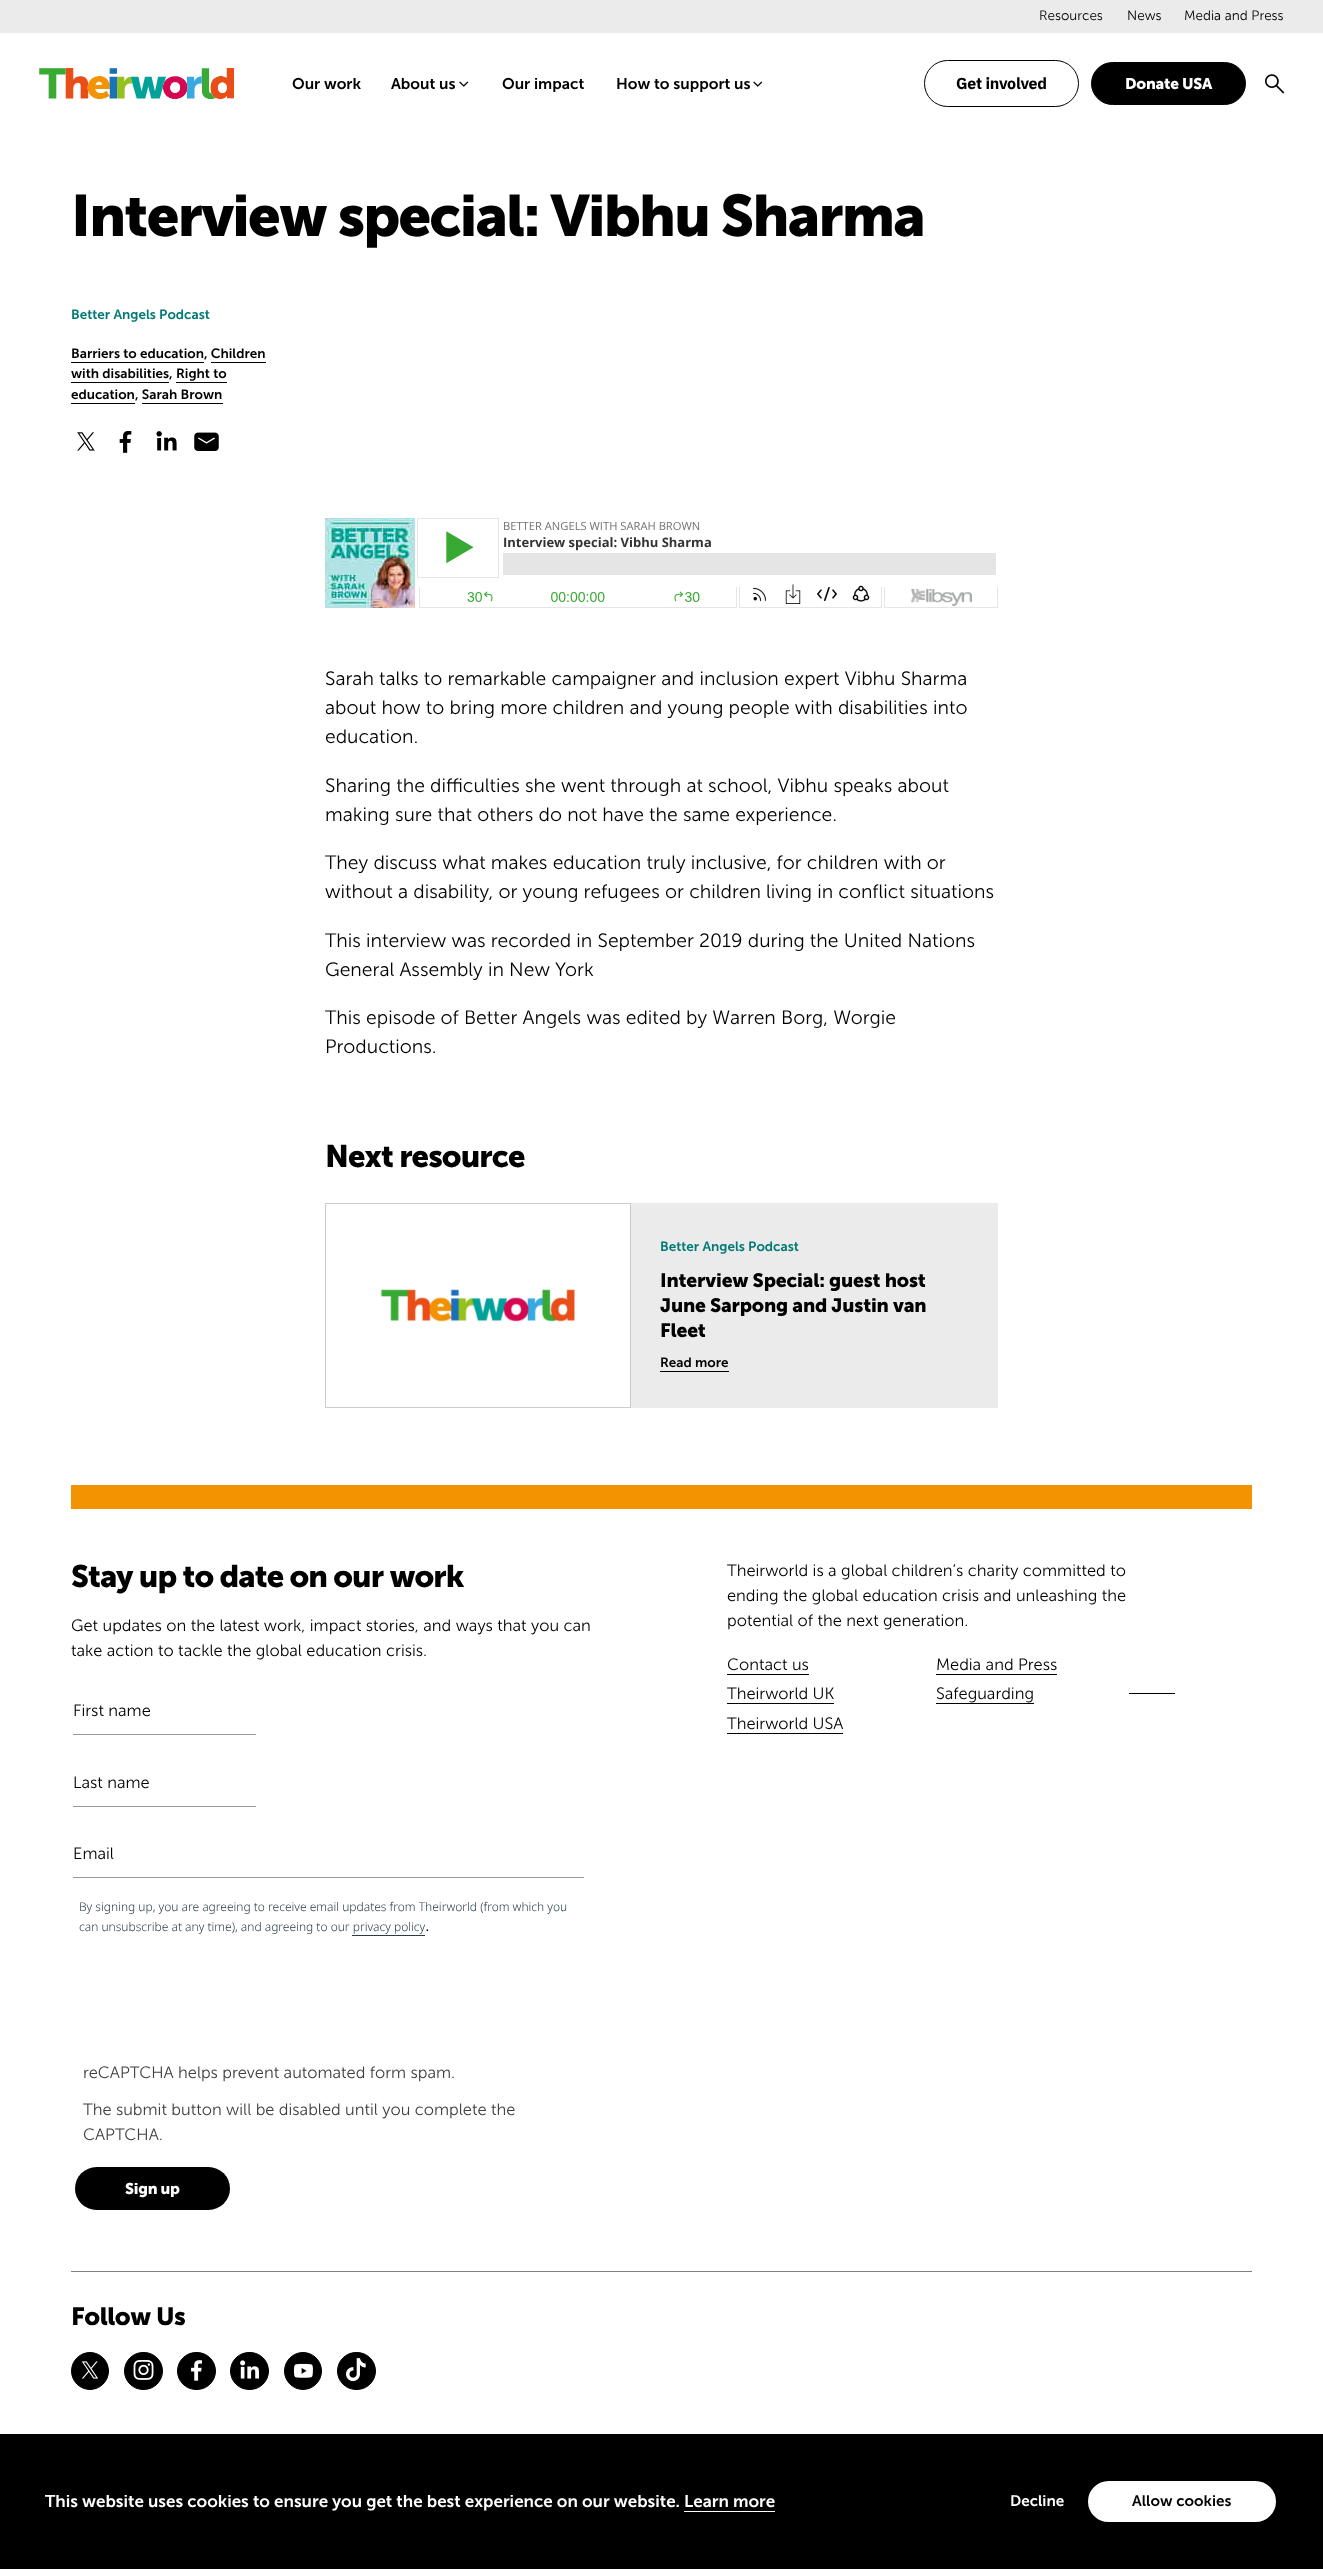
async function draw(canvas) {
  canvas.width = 1323
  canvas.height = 2569
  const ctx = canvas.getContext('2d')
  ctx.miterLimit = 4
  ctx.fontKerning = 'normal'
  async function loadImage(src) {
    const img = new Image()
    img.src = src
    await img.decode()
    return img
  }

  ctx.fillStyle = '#fff'
  ctx.fillRect(0, 0, 1323, 2569)
  ctx.fillStyle = '#ebebeb'
  ctx.fillRect(0, 0, 1323, 33)
  ctx.drawImage(await loadImage('image0.png'), 39, 68, 195, 31)
  ctx.font = '300 13.5px "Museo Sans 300"'
  ctx.fillStyle = '#000'
  ctx.fillText('Resources', 1039, 20)
  ctx.fillText('News', 1127, 20)
  ctx.fillText('Media and Press', 1184, 20)
  ctx.font = '600 15.5px "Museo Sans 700"'
  ctx.fillText('Our work', 292, 89)
  ctx.fillText('About us', 391, 89)
  ctx.drawImage(await loadImage('image1.png'), 459, 81, 10, 6)
  ctx.fillText('Our impact', 502, 89)
  ctx.fillText('How to support us', 616, 89)
  ctx.drawImage(await loadImage('image1.png'), 753, 81, 10, 6)
  ctx.beginPath()
  ctx.roundRect(924.5, 60.5, 154, 46, 23)
  ctx.strokeStyle = '#000'
  ctx.stroke()
  ctx.letterSpacing = '-0.25px'
  ctx.font = 'bold 16px IBM Plex Sans'
  ctx.fillText('Get involved', 956, 89)
  ctx.beginPath()
  ctx.roundRect(1091.5, 62.5, 154, 42, 21)
  ctx.fill()
  ctx.stroke()
  ctx.font = 'bold 15.5px "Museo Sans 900"'
  ctx.fillStyle = '#fff'
  ctx.fillText('Donate USA', 1125, 89)
  ctx.drawImage(await loadImage('image2.png'), 1265, 74, 20, 20)
  ctx.letterSpacing = '-1.75px'
  ctx.font = 'bold 58.1px "Museo Sans 900"'
  ctx.fillStyle = '#000'
  ctx.fillText('Interview special: Vibhu Sharma', 71, 236)
  ctx.letterSpacing = '0px'
  ctx.font = '600 13.5px "Museo Sans 700"'
  ctx.fillStyle = '#017974'
  ctx.fillText('Better Angels Podcast', 71, 319)
  ctx.fillStyle = '#000'
  ctx.fillText('Barriers to education, Children', 71, 358)
  ctx.fillRect(71, 362, 133, 1)
  ctx.fillText('with disabilities, Right to', 71, 378)
  ctx.fillRect(211, 362, 55, 1)
  ctx.fillRect(71, 382, 98, 1)
  ctx.fillText('education, Sarah Brown', 71, 399)
  ctx.fillRect(176, 382, 51, 1)
  ctx.fillRect(71, 403, 64, 1)
  ctx.fillRect(142, 403, 81, 1)
  ctx.drawImage(await loadImage('image3.png'), 77, 432, 18, 19)
  ctx.drawImage(await loadImage('image4.png'), 119, 431, 13, 22)
  ctx.drawImage(await loadImage('image5.png'), 156, 431, 21, 20)
  ctx.drawImage(await loadImage('image6.png'), 194, 432, 25, 19)
  ctx.drawImage(await loadImage('image7.png'), 325, 518, 673, 90)
  ctx.font = '300 19.35px "Museo Sans 300"'
  ctx.fillText('Sarah talks to remarkable campaigner and inclusion expert Vibhu Sharma', 325, 685)
  ctx.fillText('about how to bring more children and young people with disabilities into', 325, 714)
  ctx.fillText('education.', 325, 743)
  ctx.fillText('Sharing the difficulties she went through at school, Vibhu speaks about', 325, 792)
  ctx.fillText('making sure that others do not have the same experience.', 325, 821)
  ctx.fillText('They discuss what makes education truly inclusive, for children with or', 325, 869)
  ctx.fillText('without a disability, or young refugees or children living in conflict situations', 325, 898)
  ctx.fillText('This interview was recorded in September 2019 during the United Nations', 325, 947)
  ctx.fillText('General Assembly in New York', 325, 976)
  ctx.fillText('This episode of Better Angels was edited by Warren Borg, Worgie', 325, 1024)
  ctx.fillText('Productions.', 325, 1053)
  ctx.letterSpacing = '-0.9px'
  ctx.font = 'bold 31px "Museo Sans 900"'
  ctx.fillText('Next resource', 325, 1167)
  ctx.strokeStyle = '#ccc'
  ctx.strokeRect(325.5, 1203.5, 305, 204)
  ctx.drawImage(await loadImage('image8.png'), 380, 1289, 195, 33)
  ctx.fillStyle = '#ebebeb'
  ctx.fillRect(631, 1203, 367, 205)
  ctx.letterSpacing = '0px'
  ctx.font = '600 13.5px "Museo Sans 700"'
  ctx.fillStyle = '#017974'
  ctx.fillText('Better Angels Podcast', 660, 1251)
  ctx.letterSpacing = '-0.2px'
  ctx.font = 'bold 19.35px "Museo Sans 900"'
  ctx.fillStyle = '#000'
  ctx.fillText('Interview Special: guest host', 660, 1287)
  ctx.fillText('June Sarpong and Justin van', 660, 1312)
  ctx.fillText('Fleet', 660, 1337)
  ctx.letterSpacing = '0px'
  ctx.font = '600 13.5px "Museo Sans 700"'
  ctx.fillText('Read more', 660, 1367)
  ctx.fillRect(660, 1371, 69, 1)
  ctx.fillStyle = '#f39302'
  ctx.fillRect(71, 1485, 1181, 24)
  ctx.letterSpacing = '-0.9px'
  ctx.font = 'bold 31px "Museo Sans 900"'
  ctx.fillStyle = '#000'
  ctx.fillText('Stay up to date on our work', 71, 1587)
  ctx.letterSpacing = '0px'
  ctx.font = '300 16.45px "Museo Sans 300"'
  ctx.fillText('Get updates on the latest work, impact stories, and ways that you can', 71, 1631)
  ctx.fillText('take action to tackle the global education crisis.', 71, 1656)
  ctx.fillStyle = '#999'
  ctx.fillRect(73, 1734, 183, 1)
  ctx.fillStyle = '#000'
  ctx.fillText('First name', 73, 1716)
  ctx.fillStyle = '#999'
  ctx.fillRect(73, 1806, 183, 1)
  ctx.fillStyle = '#000'
  ctx.fillText('Last name', 73, 1788)
  ctx.fillStyle = '#999'
  ctx.fillRect(73, 1877, 511, 1)
  ctx.fillStyle = '#000'
  ctx.fillText('Email', 73, 1859)
  ctx.font = '300 12px Noto Sans'
  ctx.fillStyle = '#283c46'
  ctx.fillText('By signing up, you are agreeing to receive email updates from Theirworld (from which you', 79, 1911)
  ctx.fillText('can unsubscribe at any time), and agreeing to our privacy policy', 79, 1931)
  ctx.font = '300 19.35px "Museo Sans 300"'
  ctx.fillStyle = '#000'
  ctx.fillText('.', 425, 1931)
  ctx.fillStyle = '#283c46'
  ctx.fillRect(352, 1935, 73, 1)
  ctx.font = '300 16.45px "Museo Sans 300"'
  ctx.fillStyle = '#404040'
  ctx.fillText('reCAPTCHA helps prevent automated form spam.', 83, 2078)
  ctx.fillText('The submit button will be disabled until you complete the', 83, 2115)
  ctx.fillText('CAPTCHA.', 83, 2140)
  ctx.fillStyle = '#000'
  ctx.beginPath()
  ctx.roundRect(75, 2167, 155, 43, 21.5)
  ctx.fill()
  ctx.letterSpacing = '-0.25px'
  ctx.font = 'bold 15.5px "Museo Sans 900"'
  ctx.fillStyle = '#fff'
  ctx.fillText('Sign up', 125, 2194)
  ctx.letterSpacing = '0px'
  ctx.font = '300 16.45px "Museo Sans 300"'
  ctx.fillStyle = '#000'
  ctx.fillText('Theirworld is a global children’s charity committed to', 727, 1576)
  ctx.fillText('ending the global education crisis and unleashing the', 727, 1601)
  ctx.fillText('potential of the next generation.', 727, 1626)
  ctx.fillText('Contact us', 727, 1670)
  ctx.fillRect(727, 1674, 82, 1)
  ctx.fillText('Media and Press', 936, 1670)
  ctx.fillRect(936, 1674, 121, 1)
  ctx.fillText('Theirworld UK', 727, 1699)
  ctx.fillRect(727, 1703, 107, 1)
  ctx.fillText('Safeguarding', 936, 1699)
  ctx.fillRect(936, 1703, 98, 1)
  ctx.fillText('Theirworld USA', 727, 1729)
  ctx.fillRect(727, 1733, 116, 1)
  ctx.fillRect(1129, 1693, 46, 1)
  ctx.fillStyle = '#808080'
  ctx.fillRect(71, 2271, 1181, 1)
  ctx.letterSpacing = '-0.5px'
  ctx.font = 'bold 25px "Museo Sans 900"'
  ctx.fillStyle = '#000'
  ctx.fillText('Follow Us', 71, 2325)
  ctx.beginPath()
  ctx.arc(90, 2371, 18.5, 0, 2 * Math.PI)
  ctx.fill()
  ctx.strokeStyle = '#000'
  ctx.stroke()
  ctx.drawImage(await loadImage('image9.png'), 81, 2361, 18, 18)
  ctx.beginPath()
  ctx.roundRect(124.5, 2352.5, 38, 37, 18.5)
  ctx.fill()
  ctx.stroke()
  ctx.drawImage(await loadImage('image10.png'), 133, 2360, 21, 20)
  ctx.beginPath()
  ctx.roundRect(177.5, 2352.5, 38, 37, 18.5)
  ctx.fill()
  ctx.stroke()
  ctx.drawImage(await loadImage('image11.png'), 191, 2360, 11, 21)
  ctx.beginPath()
  ctx.roundRect(230.5, 2352.5, 38, 37, 18.5)
  ctx.fill()
  ctx.stroke()
  ctx.drawImage(await loadImage('image12.png'), 240, 2360, 19, 19)
  ctx.beginPath()
  ctx.arc(303, 2371, 18.5, 0, 2 * Math.PI)
  ctx.fill()
  ctx.stroke()
  ctx.drawImage(await loadImage('image13.png'), 293, 2363, 20, 15)
  ctx.beginPath()
  ctx.roundRect(337.5, 2352.5, 38, 37, 18.5)
  ctx.fill()
  ctx.stroke()
  ctx.drawImage(await loadImage('image14.png'), 346, 2358, 20, 24)
  ctx.fillRect(0, 2434, 1323, 135)
  ctx.letterSpacing = '0px'
  ctx.font = '600 17px "Museo Sans 700"'
  ctx.fillStyle = '#fff'
  ctx.fillText('This website uses cookies to ensure you get the best experience on our website. Learn more', 45, 2507)
  ctx.fillRect(684, 2511, 91, 1)
  ctx.font = '600 15.25px "Museo Sans 700"'
  ctx.fillText('Decline', 1010, 2506)
  ctx.beginPath()
  ctx.roundRect(1087, 2480, 190, 43, 21.5)
  ctx.fill()
  ctx.lineWidth = 2
  ctx.stroke()
  ctx.fillStyle = '#000'
  ctx.fillText('Allow cookies', 1132, 2506)
}

draw(document.querySelector('canvas'))
